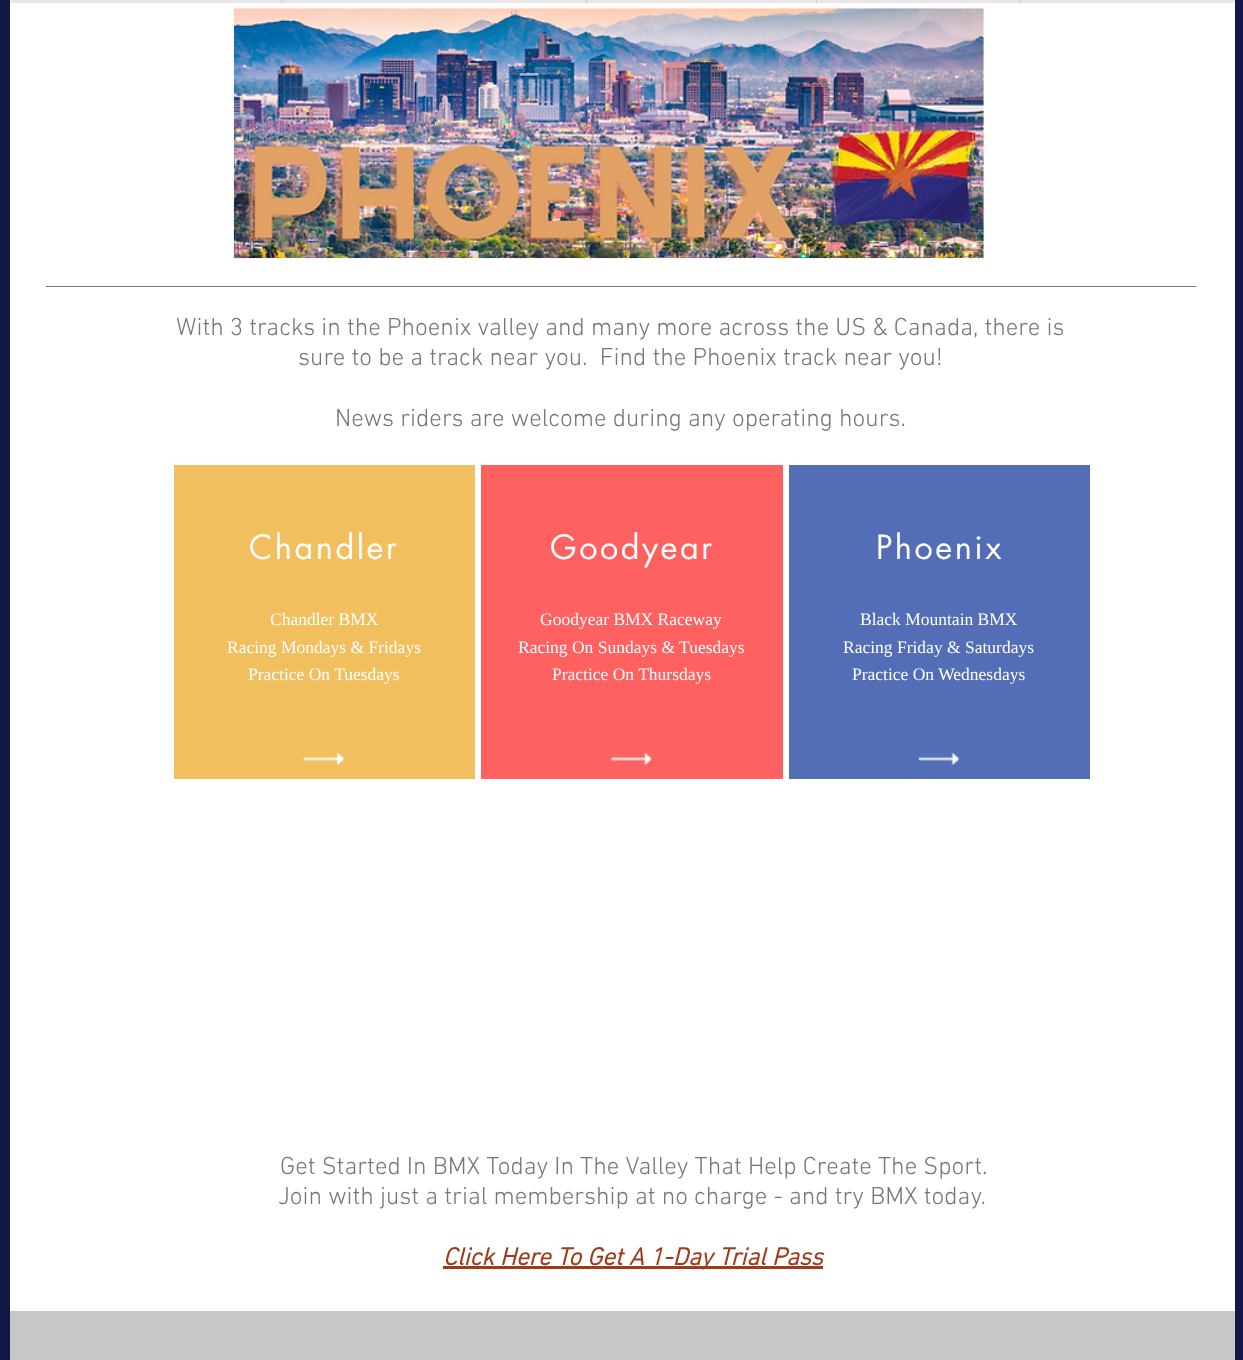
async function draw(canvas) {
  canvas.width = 1243
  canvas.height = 1360
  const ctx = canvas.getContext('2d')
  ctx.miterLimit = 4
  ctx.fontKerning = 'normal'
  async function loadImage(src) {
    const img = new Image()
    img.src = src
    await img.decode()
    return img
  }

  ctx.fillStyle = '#131946'
  ctx.fillRect(0, 0, 1243, 1360)
  ctx.fillStyle = '#e8e6e6'
  ctx.fillRect(10, 0, 1225, 3)
  ctx.fillStyle = '#c7c7c7'
  ctx.fillRect(281, 0, 1, 3)
  ctx.fillRect(586, 0, 1, 3)
  ctx.fillRect(816, 0, 1, 3)
  ctx.fillRect(1020, 0, 1, 3)
  ctx.fillStyle = '#fff'
  ctx.fillRect(10, 3, 1225, 1308)
  ctx.drawImage(await loadImage('image0.png'), 233, 8, 751, 251)
  ctx.fillStyle = '#767676'
  ctx.fillRect(46, 286, 1150, 1)
  ctx.font = '300 25px "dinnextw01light"'
  ctx.fillText('With 3 tracks in the Phoenix valley and many more across the US & Canada, there is', 176, 335)
  ctx.fillText('sure to be a track near you.  Find the Phoenix track near you!', 298, 365)
  ctx.fillText('News riders are welcome during any operating hours.', 335, 426)
  ctx.fillStyle = '#f2bf5e'
  ctx.fillRect(174, 465, 301, 314)
  ctx.letterSpacing = '2.5px'
  ctx.font = '32.5px futura'
  ctx.fillStyle = '#fff'
  ctx.fillText('Chandler', 249, 559)
  ctx.letterSpacing = '0px'
  ctx.font = '17.5px Liberation Serif'
  ctx.fillText('Chandler BMX', 270, 625)
  ctx.fillText('Racing Mondays & Fridays', 227, 653)
  ctx.fillText('Practice On Tuesdays', 248, 680)
  ctx.drawImage(await loadImage('image1.png'), 303, 753, 41, 12)
  ctx.fillStyle = '#ff6161'
  ctx.fillRect(481, 465, 302, 314)
  ctx.letterSpacing = '2.5px'
  ctx.font = '32.5px futura'
  ctx.fillStyle = '#fff'
  ctx.fillText('Goodyear', 550, 559)
  ctx.letterSpacing = '0px'
  ctx.font = '17.5px Liberation Serif'
  ctx.fillText('Goodyear BMX Raceway', 540, 625)
  ctx.fillText('Racing On Sundays & Tuesdays', 518, 653)
  ctx.fillText('Practice On Thursdays', 552, 680)
  ctx.drawImage(await loadImage('image2.png'), 611, 753, 41, 12)
  ctx.fillStyle = '#536eb7'
  ctx.fillRect(789, 465, 301, 314)
  ctx.letterSpacing = '2.5px'
  ctx.font = '32.5px futura'
  ctx.fillStyle = '#fff'
  ctx.fillText('Phoenix', 876, 559)
  ctx.letterSpacing = '0px'
  ctx.font = '17.5px Liberation Serif'
  ctx.fillText('Black Mountain BMX', 860, 625)
  ctx.fillText('Racing Friday & Saturdays', 843, 653)
  ctx.fillText('Practice On Wednesdays', 852, 680)
  ctx.drawImage(await loadImage('image3.png'), 918, 753, 41, 12)
  ctx.font = '300 25px "dinnextw01light"'
  ctx.fillStyle = '#767676'
  ctx.fillText('Get Started In BMX Today In The Valley That Help Create The Sport.', 280, 1174)
  ctx.fillText('Join with just a trial membership at no charge - and try BMX today.', 278, 1204)
  ctx.fillStyle = '#9e3b1b'
  ctx.fillRect(443, 1266, 380, 3)
  ctx.font = 'italic bold 25px "dinnextw01light"'
  ctx.fillText('Click Here To Get A 1-Day Trial Pass', 443, 1265)
  ctx.fillStyle = '#c7c7c7'
  ctx.fillRect(10, 1311, 1225, 49)
}

draw(document.querySelector('canvas'))
